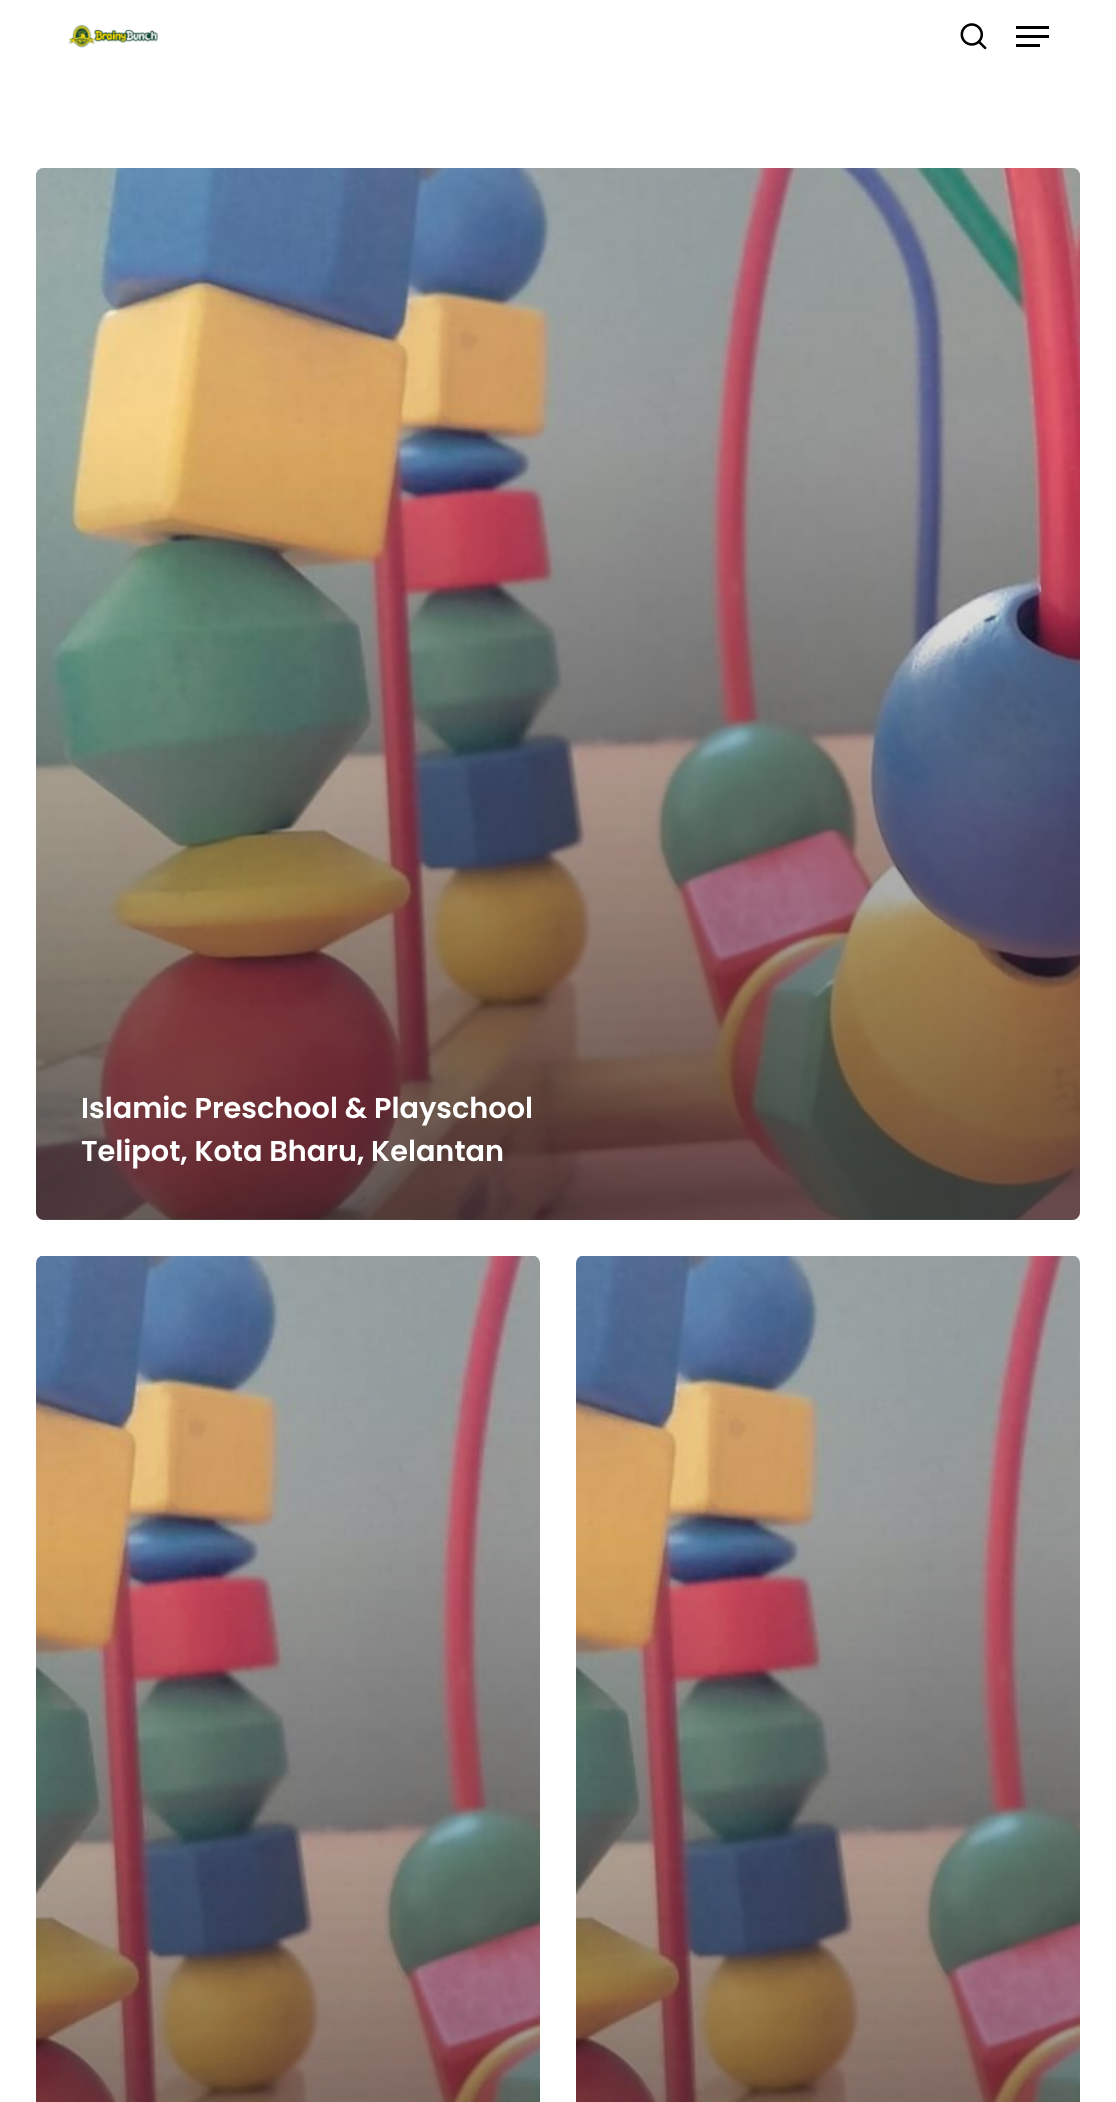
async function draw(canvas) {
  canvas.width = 1116
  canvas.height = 2102
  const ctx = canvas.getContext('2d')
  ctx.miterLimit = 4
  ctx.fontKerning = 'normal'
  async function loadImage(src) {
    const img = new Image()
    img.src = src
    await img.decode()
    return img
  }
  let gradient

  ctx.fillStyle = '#fff'
  ctx.fillRect(0, 0, 1116, 2102)
  ctx.drawImage(await loadImage('image0.png'), 68, 25, 90, 23)
  ctx.drawImage(await loadImage('image1.png'), 960, 23, 27, 27)
  ctx.fillStyle = '#000'
  ctx.fillRect(1016, 26, 33, 3)
  ctx.fillRect(1016, 44, 24, 3)
  ctx.fillRect(1016, 35, 33, 3)
  ctx.fillStyle = '#b3b3b3'
  ctx.beginPath()
  ctx.roundRect(36, 168, 1044, 1052, 8)
  ctx.fill()
  ctx.drawImage(await loadImage('image2.png'), 36, 168, 1044, 1052)
  gradient = ctx.createLinearGradient(560, 432, 560, 1226)
  gradient.addColorStop(0, '#23232300')
  gradient.addColorStop(1, '#232323a6')
  ctx.fillStyle = gradient
  ctx.beginPath()
  ctx.roundRect(36, 432, 1044, 788, [0, 0, 8, 8])
  ctx.fill()
  ctx.font = '600 28.75px Poppins'
  ctx.fillStyle = '#fff'
  ctx.fillText('Islamic Preschool & Playschool', 81, 1118)
  ctx.fillText('Telipot, Kota Bharu, Kelantan', 81, 1161)
  ctx.drawImage(await loadImage('image3.png'), 36, 1256, 504, 846)
  ctx.drawImage(await loadImage('image4.png'), 576, 1256, 504, 846)
}

draw(document.querySelector('canvas'))
